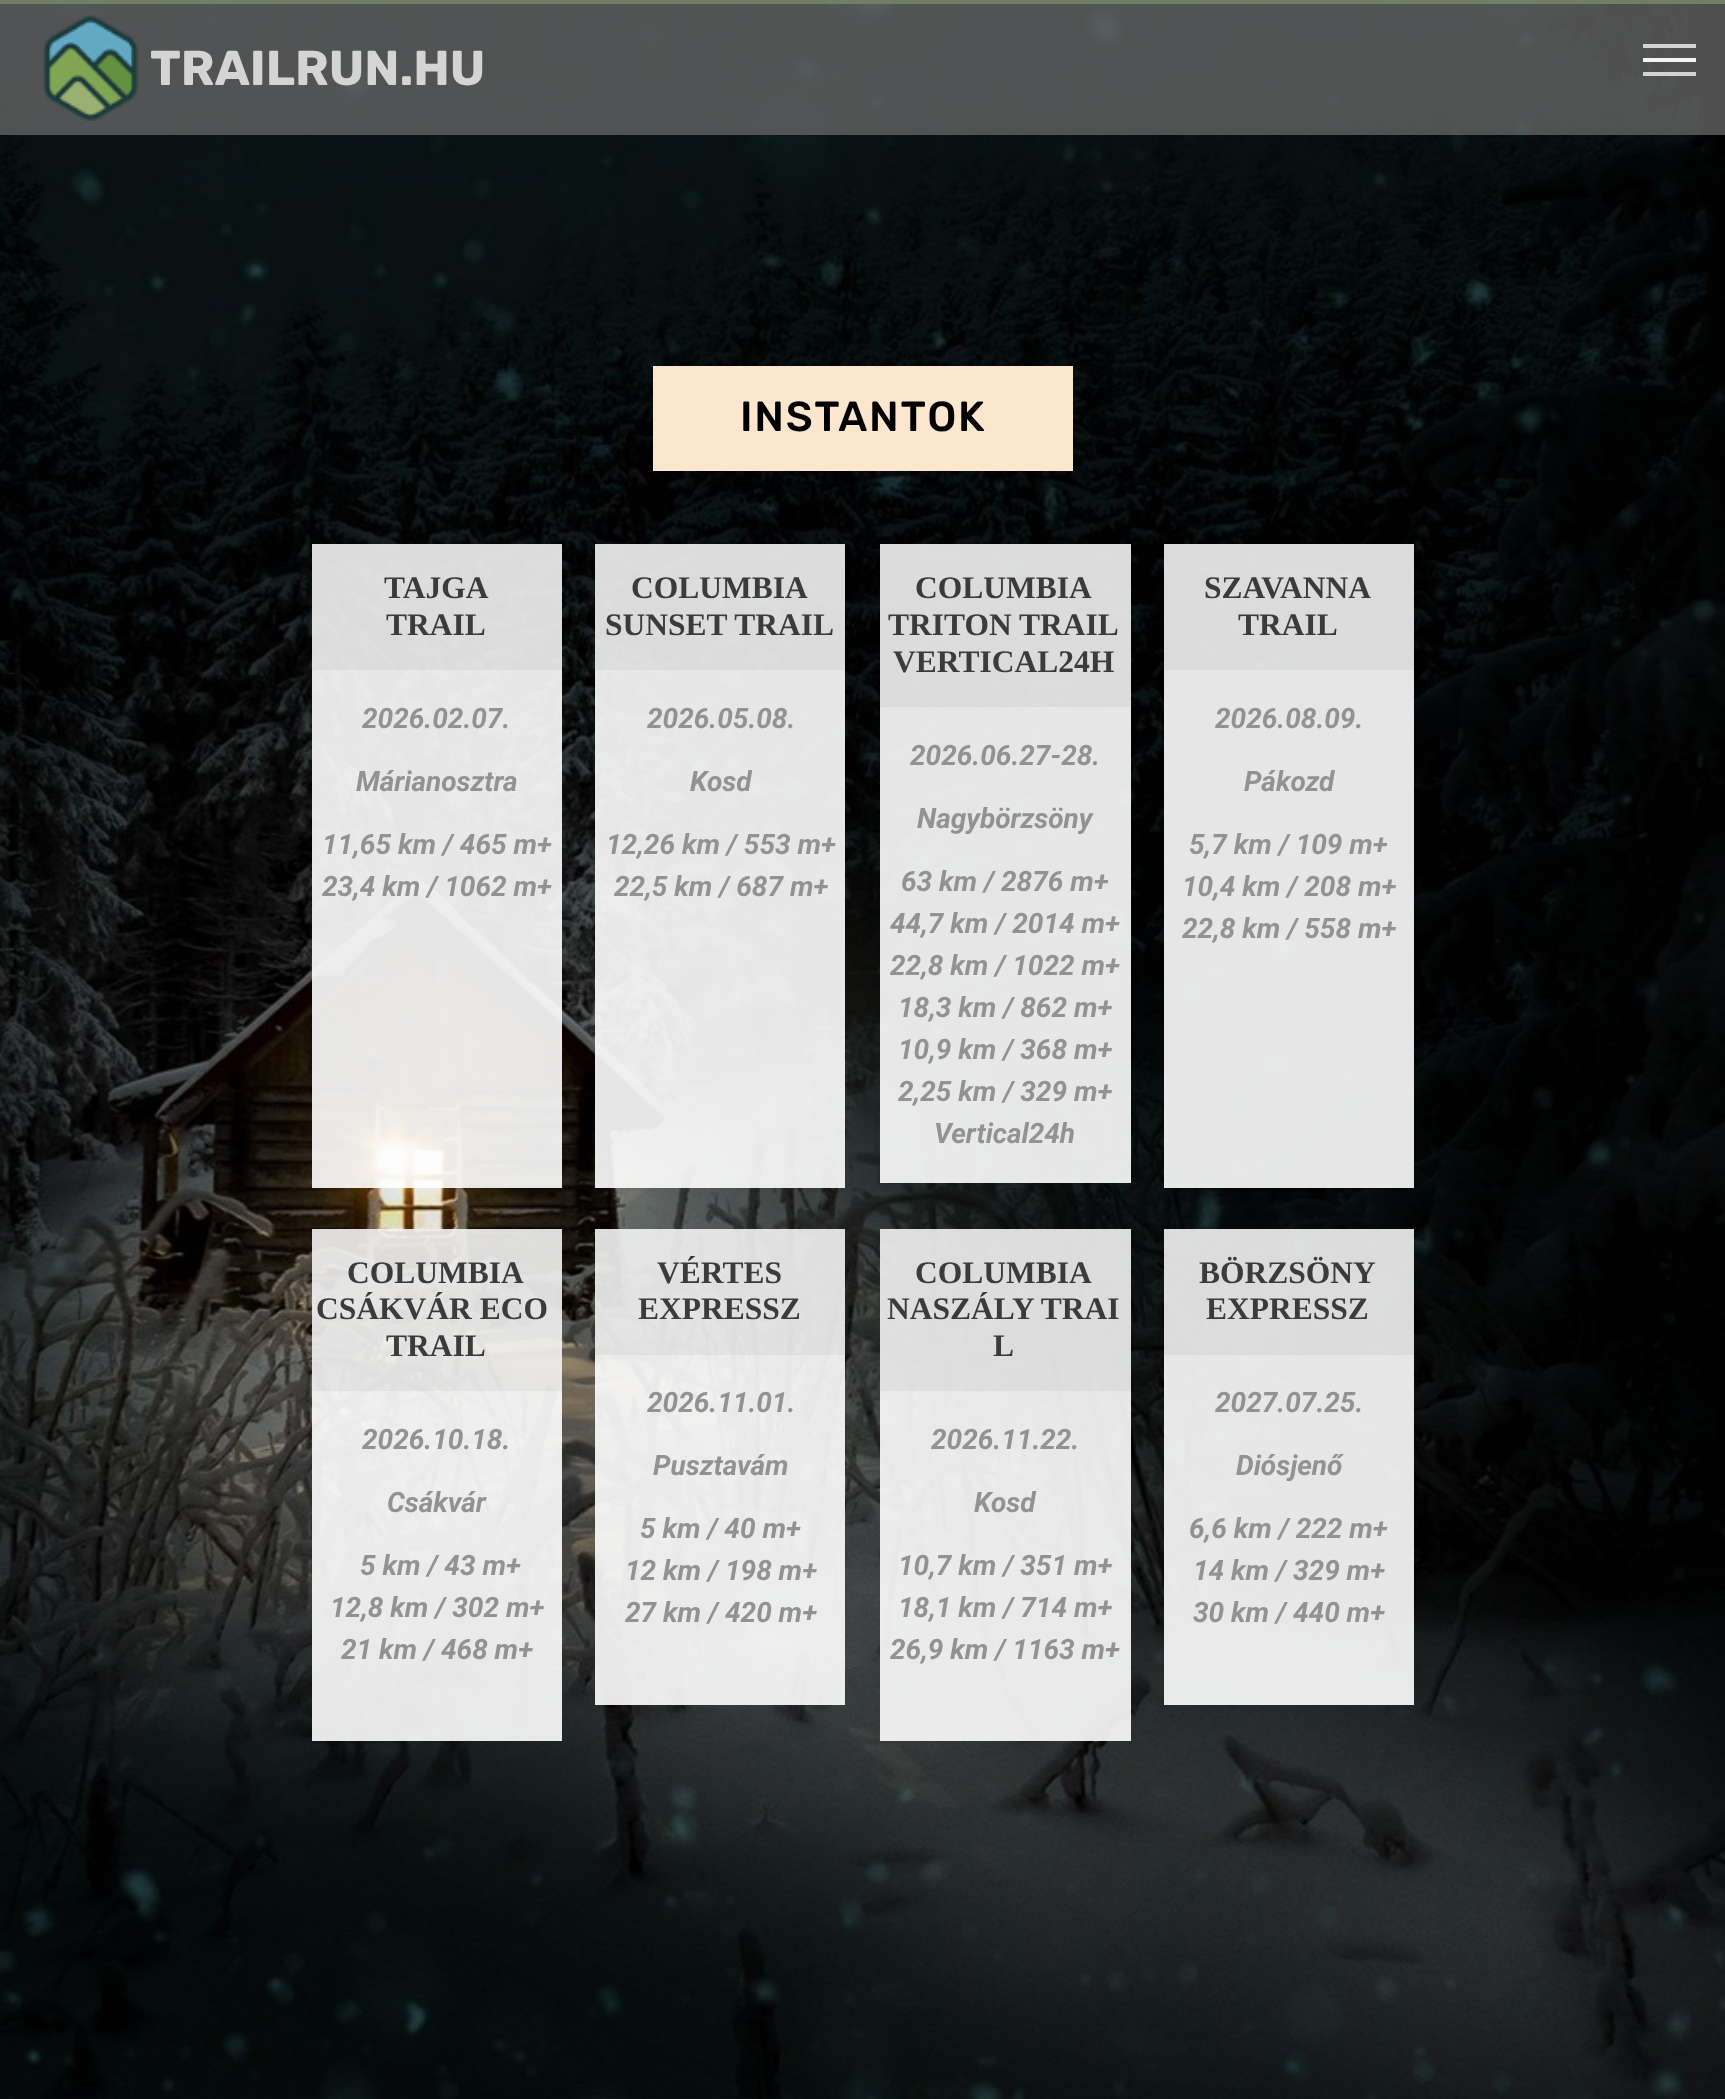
async function draw(canvas) {
  canvas.width = 1725
  canvas.height = 2099
  const ctx = canvas.getContext('2d')
  ctx.miterLimit = 4
  ctx.fontKerning = 'normal'
  async function loadImage(src) {
    const img = new Image()
    img.src = src
    await img.decode()
    return img
  }

  ctx.fillStyle = '#fff'
  ctx.fillRect(0, 0, 1725, 2099)
  ctx.drawImage(await loadImage('image0.png'), 0, 4, 1725, 2095)
  ctx.fillStyle = '#8aba56'
  ctx.fillRect(0, 0, 1725, 4)
  ctx.fillStyle = '#6a6a6abf'
  ctx.fillRect(0, 0, 1725, 135)
  ctx.drawImage(await loadImage('image1.png'), 43, 15, 96, 106)
  ctx.font = 'bold 49px Rubik'
  ctx.fillStyle = '#d4d4d4'
  ctx.fillText('TRAILRUN.HU', 150, 85)
  ctx.fillStyle = '#d3d3d3'
  ctx.fillRect(1643, 44, 53, 4)
  ctx.fillStyle = '#f4f4f4'
  ctx.fillRect(1643, 58, 53, 4)
  ctx.fillStyle = '#ffffffbf'
  ctx.fillRect(1643, 72, 53, 4)
  ctx.fillStyle = '#fce6cd'
  ctx.fillRect(653, 366, 420, 105)
  ctx.letterSpacing = '1.75px'
  ctx.font = '500 42px Rubik'
  ctx.fillStyle = '#000'
  ctx.fillText('INSTANTOK', 740, 431)
  ctx.fillStyle = '#f3f3f3e6'
  ctx.fillRect(312, 544, 250, 126)
  ctx.letterSpacing = '0px'
  ctx.font = 'bold 31.5px Liberation Serif'
  ctx.fillStyle = '#3b3b3b'
  ctx.fillText('TAJGA', 384, 598)
  ctx.fillText('TRAIL', 386, 635)
  ctx.fillStyle = '#ffffffe6'
  ctx.fillRect(312, 670, 250, 518)
  ctx.font = 'italic bold 28px Roboto'
  ctx.fillStyle = '#929292'
  ctx.fillText('2026.02.07.', 362, 728)
  ctx.fillText('Márianosztra', 356, 791)
  ctx.fillText('11,65 km / 465 m+', 322, 854)
  ctx.fillText('23,4 km / 1062 m+', 322, 896)
  ctx.fillStyle = '#f3f3f3e6'
  ctx.fillRect(595, 544, 250, 126)
  ctx.font = 'bold 31.5px Liberation Serif'
  ctx.fillStyle = '#3b3b3b'
  ctx.fillText('COLUMBIA', 631, 598)
  ctx.fillText('SUNSET TRAIL', 605, 635)
  ctx.fillStyle = '#ffffffe6'
  ctx.fillRect(595, 670, 250, 518)
  ctx.font = 'italic bold 28px Roboto'
  ctx.fillStyle = '#929292'
  ctx.fillText('2026.05.08.', 647, 728)
  ctx.fillText('Kosd', 690, 791)
  ctx.fillText('12,26 km / 553 m+', 606, 854)
  ctx.fillText('22,5 km / 687 m+', 614, 896)
  ctx.fillStyle = '#f3f3f3e6'
  ctx.fillRect(880, 544, 251, 163)
  ctx.font = 'bold 31.5px Liberation Serif'
  ctx.fillStyle = '#3b3b3b'
  ctx.fillText('COLUMBIA', 915, 598)
  ctx.fillText('TRITON TRAIL', 888, 635)
  ctx.fillText('VERTICAL24H', 893, 672)
  ctx.fillStyle = '#ffffffe6'
  ctx.fillRect(880, 707, 251, 476)
  ctx.font = 'italic bold 28px Roboto'
  ctx.fillStyle = '#929292'
  ctx.fillText('2026.06.27-28.', 910, 765)
  ctx.fillText('Nagybörzsöny', 917, 828)
  ctx.fillText('63 km / 2876 m+', 901, 891)
  ctx.fillText('44,7 km / 2014 m+', 890, 933)
  ctx.fillText('22,8 km / 1022 m+', 890, 975)
  ctx.fillText('18,3 km / 862 m+', 898, 1017)
  ctx.fillText('10,9 km / 368 m+', 898, 1059)
  ctx.fillText('2,25 km / 329 m+', 898, 1101)
  ctx.fillText('Vertical24h', 934, 1143)
  ctx.fillStyle = '#f3f3f3e6'
  ctx.fillRect(1164, 544, 250, 126)
  ctx.font = 'bold 31.5px Liberation Serif'
  ctx.fillStyle = '#3b3b3b'
  ctx.fillText('SZAVANNA', 1204, 598)
  ctx.fillText('TRAIL', 1238, 635)
  ctx.fillStyle = '#ffffffe6'
  ctx.fillRect(1164, 670, 250, 518)
  ctx.font = 'italic bold 28px Roboto'
  ctx.fillStyle = '#929292'
  ctx.fillText('2026.08.09.', 1215, 728)
  ctx.fillText('Pákozd', 1244, 791)
  ctx.fillText('5,7 km / 109 m+', 1189, 854)
  ctx.fillText('10,4 km / 208 m+', 1182, 896)
  ctx.fillText('22,8 km / 558 m+', 1182, 938)
  ctx.fillStyle = '#f3f3f3e6'
  ctx.fillRect(312, 1229, 250, 162)
  ctx.font = 'bold 31.5px Liberation Serif'
  ctx.fillStyle = '#3b3b3b'
  ctx.fillText('COLUMBIA', 347, 1283)
  ctx.fillText('CSÁKVÁR ECO', 316, 1319)
  ctx.fillText('TRAIL', 386, 1356)
  ctx.fillStyle = '#ffffffe6'
  ctx.fillRect(312, 1391, 250, 350)
  ctx.font = 'italic bold 28px Roboto'
  ctx.fillStyle = '#929292'
  ctx.fillText('2026.10.18.', 362, 1449)
  ctx.fillText('Csákvár', 387, 1512)
  ctx.fillText('5 km / 43 m+', 360, 1575)
  ctx.fillText('12,8 km / 302 m+', 330, 1617)
  ctx.fillText('21 km / 468 m+', 341, 1659)
  ctx.fillStyle = '#f3f3f3e6'
  ctx.fillRect(595, 1229, 250, 126)
  ctx.font = 'bold 31.5px Liberation Serif'
  ctx.fillStyle = '#3b3b3b'
  ctx.fillText('VÉRTES', 657, 1283)
  ctx.fillText('EXPRESSZ', 638, 1319)
  ctx.fillStyle = '#ffffffe6'
  ctx.fillRect(595, 1355, 250, 350)
  ctx.font = 'italic bold 28px Roboto'
  ctx.fillStyle = '#929292'
  ctx.fillText('2026.11.01.', 647, 1412)
  ctx.fillText('Pusztavám', 653, 1475)
  ctx.fillText('5 km / 40 m+', 640, 1538)
  ctx.fillText('12 km / 198 m+', 625, 1580)
  ctx.fillText('27 km / 420 m+', 625, 1622)
  ctx.fillStyle = '#f3f3f3e6'
  ctx.fillRect(880, 1229, 251, 162)
  ctx.font = 'bold 31.5px Liberation Serif'
  ctx.fillStyle = '#3b3b3b'
  ctx.fillText('COLUMBIA', 915, 1283)
  ctx.fillText('NASZÁLY TRAI', 887, 1319)
  ctx.fillText('L', 993, 1356)
  ctx.fillStyle = '#ffffffe6'
  ctx.fillRect(880, 1391, 251, 350)
  ctx.font = 'italic bold 28px Roboto'
  ctx.fillStyle = '#929292'
  ctx.fillText('2026.11.22.', 931, 1449)
  ctx.fillText('Kosd', 974, 1512)
  ctx.fillText('10,7 km / 351 m+', 898, 1575)
  ctx.fillText('18,1 km / 714 m+', 898, 1617)
  ctx.fillText('26,9 km / 1163 m+', 890, 1659)
  ctx.fillStyle = '#f3f3f3e6'
  ctx.fillRect(1164, 1229, 250, 126)
  ctx.font = 'bold 31.5px Liberation Serif'
  ctx.fillStyle = '#3b3b3b'
  ctx.fillText('BÖRZSÖNY', 1199, 1283)
  ctx.fillText('EXPRESSZ', 1206, 1319)
  ctx.fillStyle = '#ffffffe6'
  ctx.fillRect(1164, 1355, 250, 350)
  ctx.font = 'italic bold 28px Roboto'
  ctx.fillStyle = '#929292'
  ctx.fillText('2027.07.25.', 1215, 1412)
  ctx.fillText('Diósjenő', 1236, 1475)
  ctx.fillText('6,6 km / 222 m+', 1189, 1538)
  ctx.fillText('14 km / 329 m+', 1193, 1580)
  ctx.fillText('30 km / 440 m+', 1193, 1622)
}

draw(document.querySelector('canvas'))
